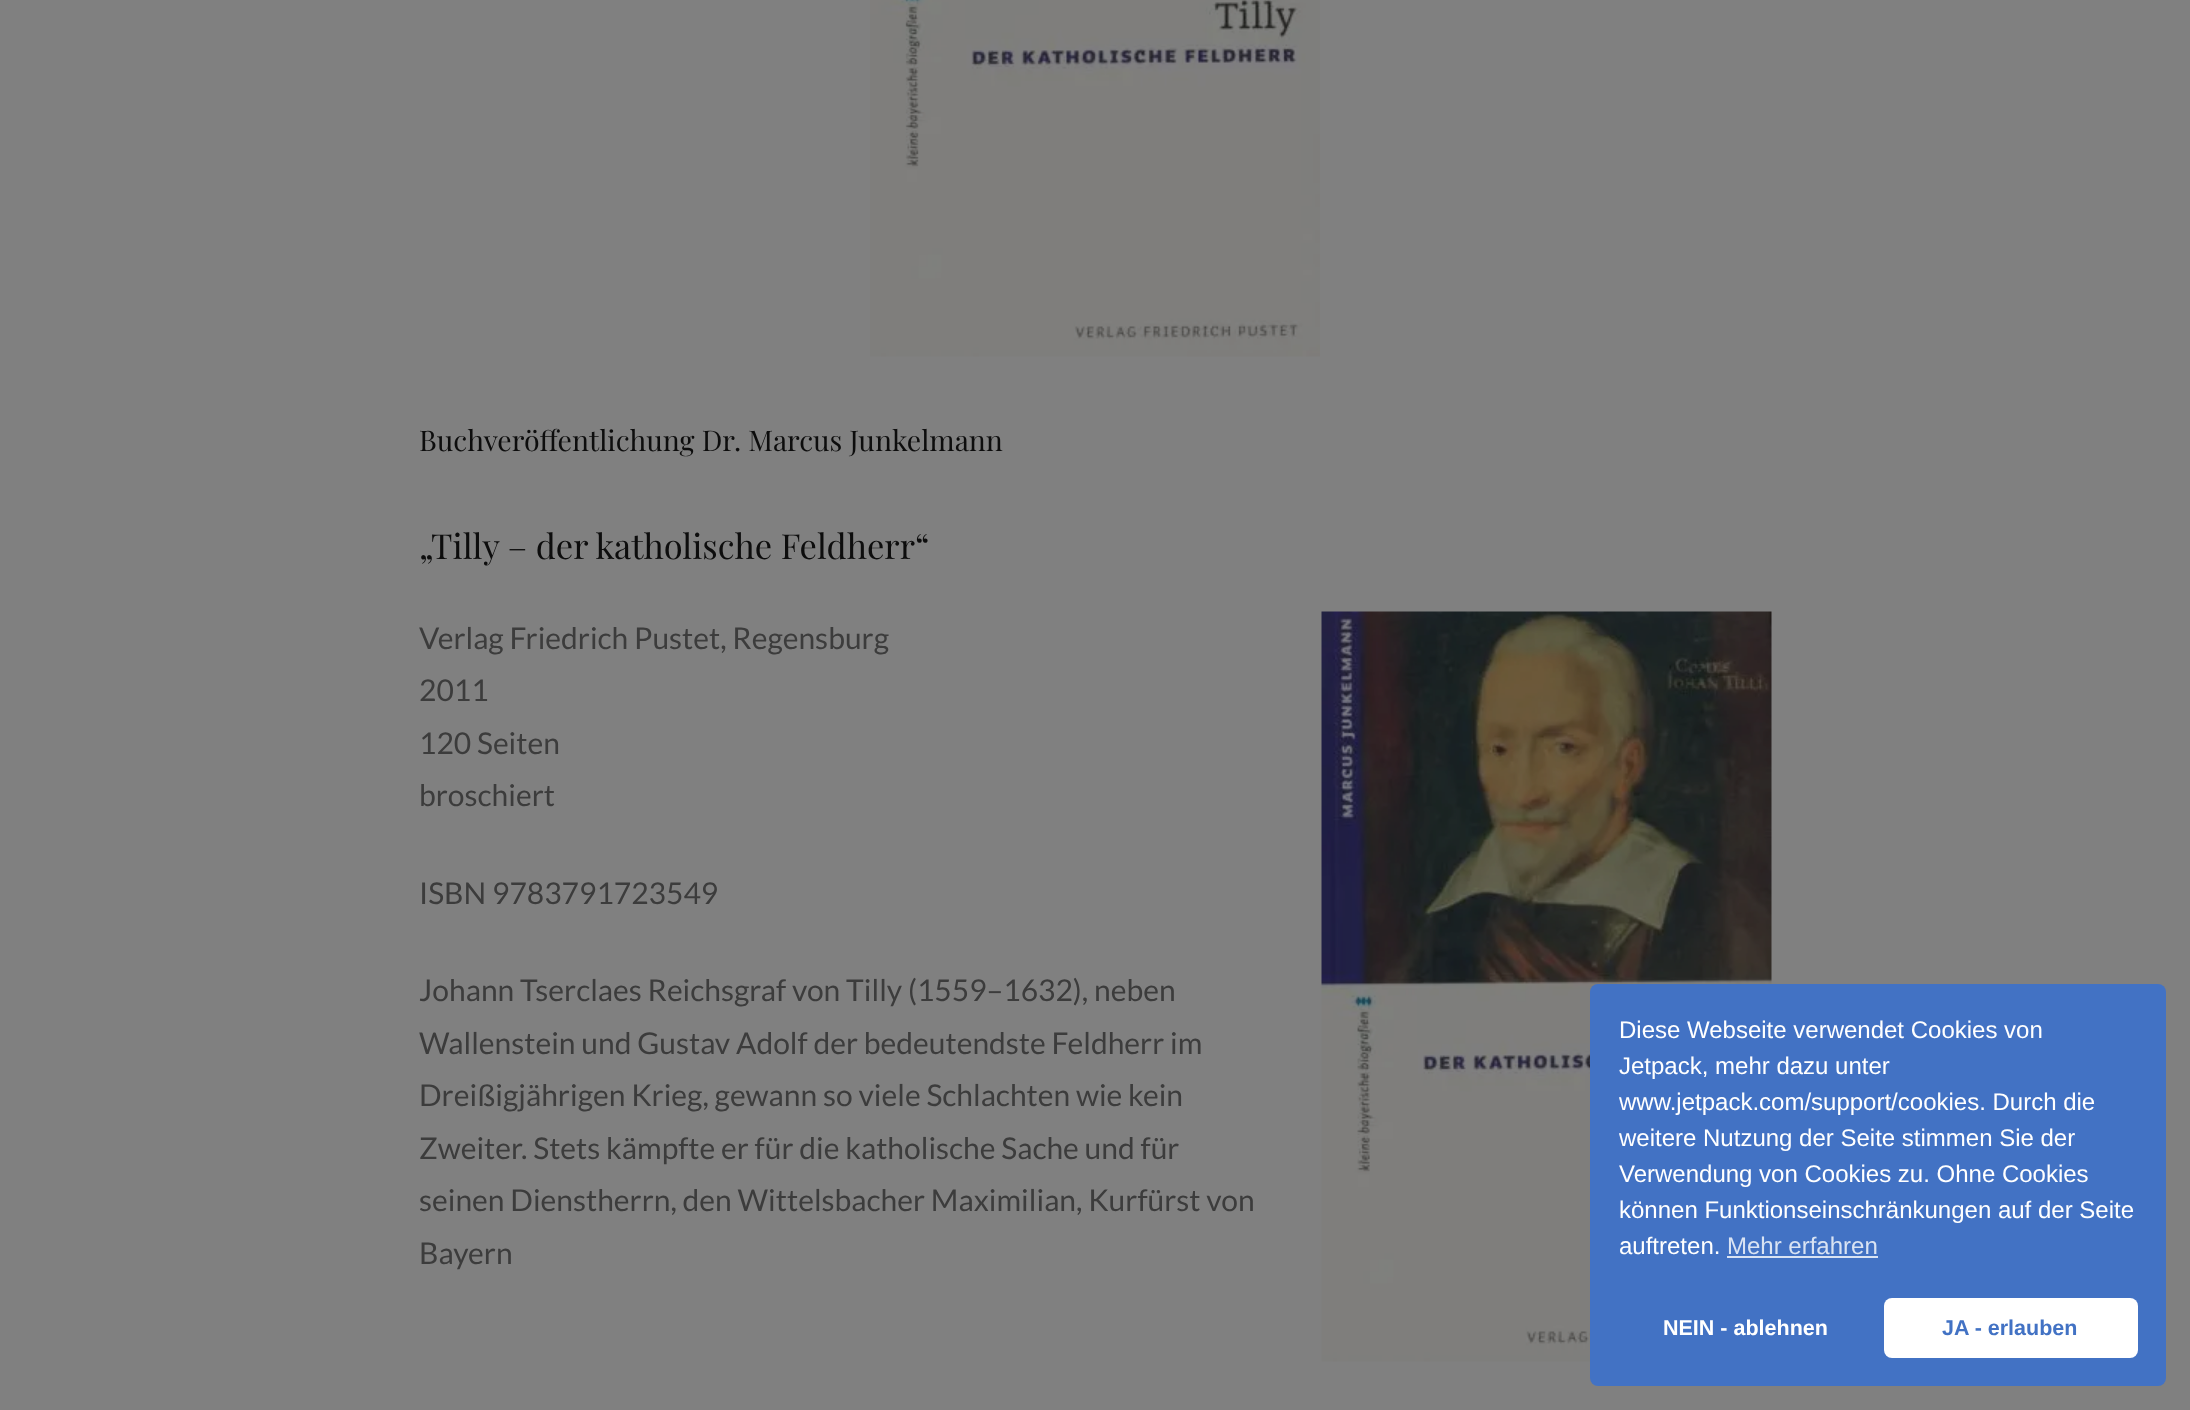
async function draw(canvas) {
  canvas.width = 2190
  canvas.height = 1410
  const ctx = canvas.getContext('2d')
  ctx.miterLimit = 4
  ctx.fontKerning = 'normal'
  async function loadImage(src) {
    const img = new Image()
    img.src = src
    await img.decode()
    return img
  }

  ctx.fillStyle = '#808080'
  ctx.fillRect(0, 0, 2190, 1410)
  ctx.drawImage(await loadImage('image0.png'), 870, 0, 450, 357)
  ctx.font = '28.5px Playfair Display'
  ctx.fillStyle = '#0d0d0d'
  ctx.fillText('Buchveröffentlichung Dr. Marcus Junkelmann', 419, 451)
  ctx.font = '34.5px Playfair Display'
  ctx.fillText('„Tilly – der katholische Feldherr“', 419, 559)
  ctx.font = '30px Lato'
  ctx.fillStyle = '#3c3c3c'
  ctx.fillText('Verlag Friedrich Pustet, Regensburg', 419, 649)
  ctx.fillText('2011', 419, 701)
  ctx.fillText('120 Seiten', 419, 754)
  ctx.fillText('broschiert', 419, 806)
  ctx.drawImage(await loadImage('image1.png'), 1321, 611, 451, 751)
  ctx.fillText('ISBN 9783791723549', 419, 904)
  ctx.fillText('Johann Tserclaes Reichsgraf von Tilly (1559–1632), neben', 419, 1001)
  ctx.fillText('Wallenstein und Gustav Adolf der bedeutendste Feldherr im', 419, 1054)
  ctx.fillText('Dreißigjährigen Krieg, gewann so viele Schlachten wie kein', 419, 1106)
  ctx.fillText('Zweiter. Stets kämpfte er für die katholische Sache und für', 419, 1159)
  ctx.fillText('seinen Dienstherrn, den Wittelsbacher Maximilian, Kurfürst von', 419, 1211)
  ctx.fillText('Bayern', 419, 1264)
  ctx.fillStyle = '#4272c4'
  ctx.beginPath()
  ctx.roundRect(1590, 984, 576, 402, 8)
  ctx.fill()
  ctx.font = '24px Liberation Sans'
  ctx.fillStyle = '#fff'
  ctx.fillText('Diese Webseite verwendet Cookies von', 1619, 1038)
  ctx.fillText('Jetpack, mehr dazu unter', 1619, 1074)
  ctx.fillText('www.jetpack.com/support/cookies. Durch die', 1619, 1110)
  ctx.fillText('weitere Nutzung der Seite stimmen Sie der', 1619, 1146)
  ctx.fillText('Verwendung von Cookies zu. Ohne Cookies', 1619, 1182)
  ctx.fillText('können Funktionseinschränkungen auf der Seite', 1619, 1218)
  ctx.fillText('auftreten.', 1619, 1254)
  ctx.fillStyle = '#d9e3f3'
  ctx.fillText('Mehr erfahren', 1727, 1254)
  ctx.fillRect(1727, 1256, 151, 2)
  ctx.font = 'bold 21.5px Liberation Sans'
  ctx.fillStyle = '#fff'
  ctx.fillText('NEIN - ablehnen', 1663, 1335)
  ctx.beginPath()
  ctx.roundRect(1884, 1298, 254, 60, 8)
  ctx.fill()
  ctx.fillStyle = '#4272c4'
  ctx.fillText('JA - erlauben', 1942, 1335)
}

draw(document.querySelector('canvas'))
